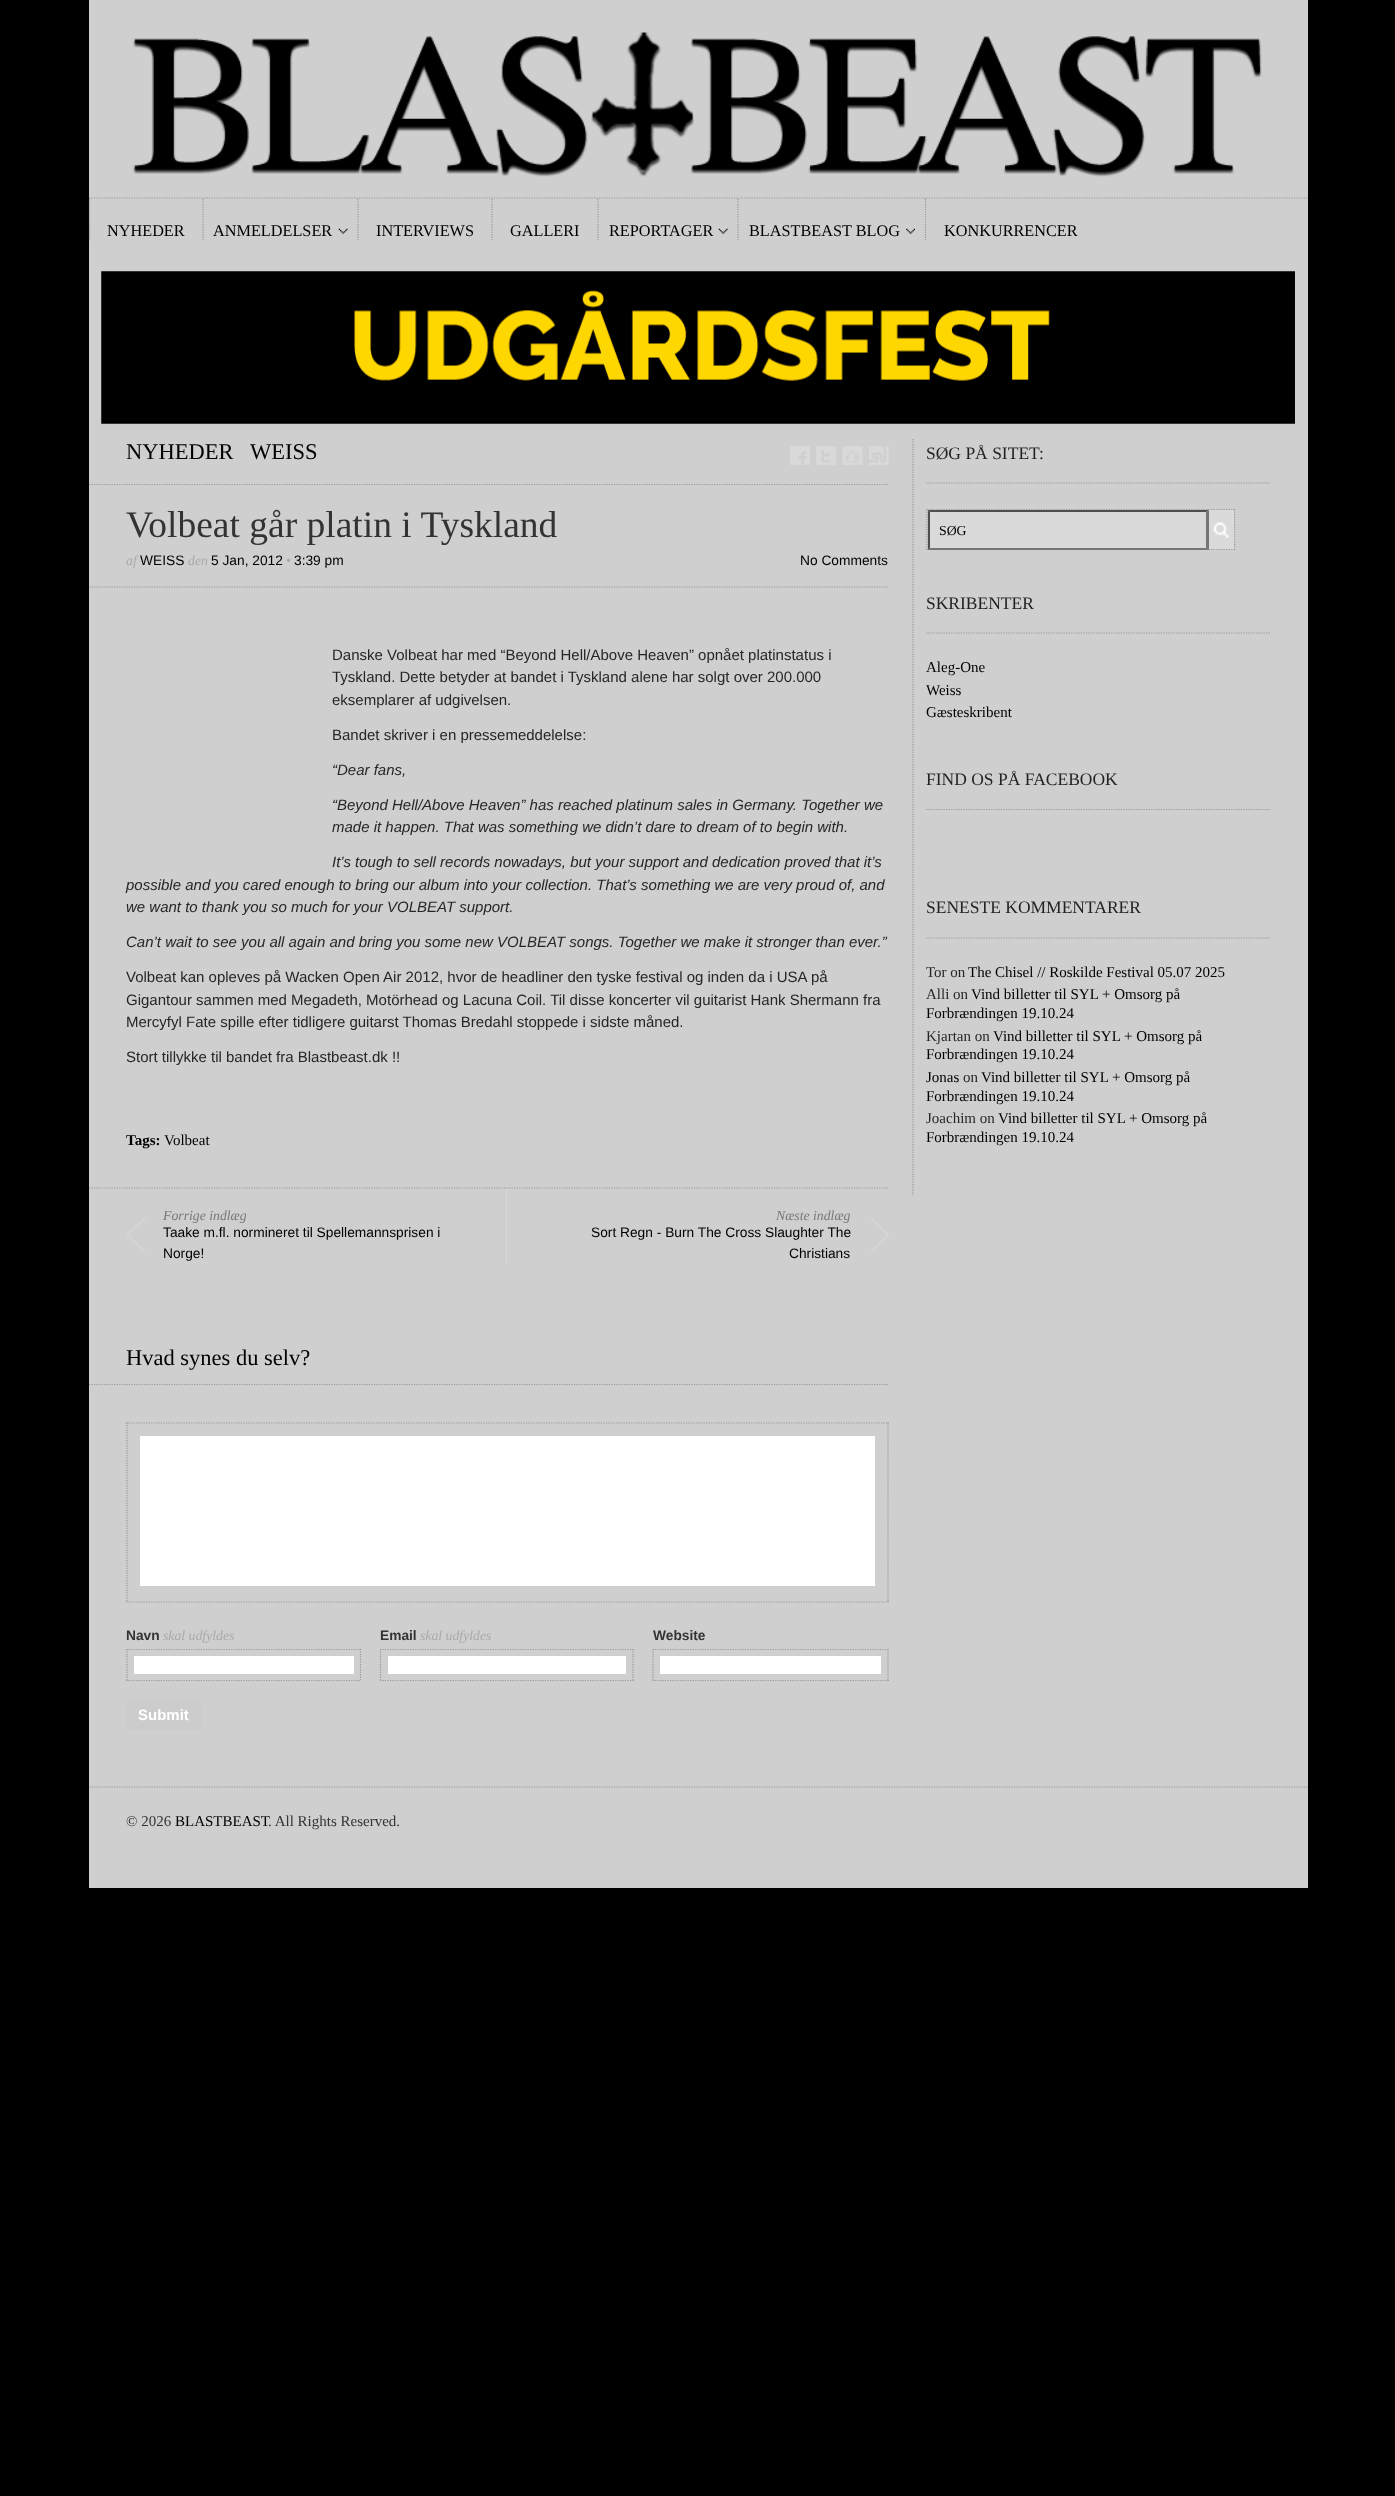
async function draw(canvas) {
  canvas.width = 1395
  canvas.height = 2496
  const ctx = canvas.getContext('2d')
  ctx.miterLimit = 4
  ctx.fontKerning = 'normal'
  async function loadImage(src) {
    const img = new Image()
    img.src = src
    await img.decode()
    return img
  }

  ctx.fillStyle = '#000'
  ctx.fillRect(0, 0, 1395, 2496)
  ctx.fillStyle = '#cfcfcf'
  ctx.fillRect(89, 0, 1219, 1888)
  ctx.drawImage(await loadImage('image0.png'), 133, 32, 1129, 145)
  ctx.beginPath()
  ctx.moveTo(89, 198)
  ctx.lineTo(1307.5, 198)
  ctx.strokeStyle = '#999'
  ctx.lineWidth = 1.2
  ctx.setLineDash([1.25, 1.25])
  ctx.stroke()
  ctx.beginPath()
  ctx.moveTo(89.5, 199)
  ctx.lineTo(89.5, 241)
  ctx.stroke()
  ctx.font = '16.25px Liberation Serif'
  ctx.fillStyle = '#000'
  ctx.fillText('NYHEDER', 107, 236)
  ctx.beginPath()
  ctx.moveTo(203, 199)
  ctx.lineTo(203, 241)
  ctx.stroke()
  ctx.drawImage(await loadImage('image1.png'), 338, 228, 10, 6)
  ctx.fillText('ANMELDELSER', 213, 236)
  ctx.beginPath()
  ctx.moveTo(358, 199)
  ctx.lineTo(358, 241)
  ctx.stroke()
  ctx.fillText('INTERVIEWS', 376, 236)
  ctx.beginPath()
  ctx.moveTo(492, 199)
  ctx.lineTo(492, 241)
  ctx.stroke()
  ctx.fillText('GALLERI', 510, 236)
  ctx.beginPath()
  ctx.moveTo(598, 199)
  ctx.lineTo(598, 241)
  ctx.stroke()
  ctx.drawImage(await loadImage('image1.png'), 718, 228, 10, 6)
  ctx.fillText('REPORTAGER', 609, 236)
  ctx.beginPath()
  ctx.moveTo(738, 199)
  ctx.lineTo(738, 241)
  ctx.stroke()
  ctx.drawImage(await loadImage('image2.png'), 906, 228, 9, 6)
  ctx.fillText('BLASTBEAST BLOG', 749, 236)
  ctx.beginPath()
  ctx.moveTo(925.5, 199)
  ctx.lineTo(925.5, 241)
  ctx.stroke()
  ctx.fillText('KONKURRENCER', 944, 236)
  ctx.drawImage(await loadImage('image3.png'), 101, 271, 1194, 153)
  ctx.beginPath()
  ctx.moveTo(89, 484.5)
  ctx.lineTo(889, 484.5)
  ctx.stroke()
  ctx.font = '22.5px Liberation Serif'
  ctx.fillText('NYHEDER', 126, 459)
  ctx.fillText('WEISS', 250, 459)
  ctx.drawImage(await loadImage('image4.png'), 790, 446, 20, 19)
  ctx.drawImage(await loadImage('image5.png'), 816, 446, 20, 19)
  ctx.drawImage(await loadImage('image6.png'), 842, 446, 21, 19)
  ctx.drawImage(await loadImage('image7.png'), 869, 446, 20, 19)
  ctx.beginPath()
  ctx.moveTo(89, 1188)
  ctx.lineTo(889, 1188)
  ctx.stroke()
  ctx.beginPath()
  ctx.moveTo(89, 587)
  ctx.lineTo(889, 587)
  ctx.stroke()
  ctx.font = '37.5px Liberation Serif'
  ctx.fillStyle = '#333'
  ctx.fillText('Volbeat går platin i Tyskland', 126, 537)
  ctx.font = 'italic 13.75px Liberation Serif'
  ctx.fillStyle = '#aaa9a9'
  ctx.fillText('af', 126, 565)
  ctx.font = '13.75px Liberation Sans'
  ctx.fillStyle = '#000'
  ctx.fillText('WEISS', 140, 565)
  ctx.font = 'italic 13.75px Liberation Serif'
  ctx.fillStyle = '#aaa9a9'
  ctx.fillText('den', 188, 565)
  ctx.font = '13.75px Liberation Sans'
  ctx.fillStyle = '#000'
  ctx.fillText('5 Jan, 2012', 211, 565)
  ctx.font = 'italic 13.75px Liberation Serif'
  ctx.fillStyle = '#aaa9a9'
  ctx.fillText('•', 286, 565)
  ctx.font = '13.75px Liberation Sans'
  ctx.fillStyle = '#000'
  ctx.fillText('3:39 pm', 294, 565)
  ctx.fillText('No Comments', 800, 565)
  ctx.font = '15px Liberation Sans'
  ctx.fillStyle = '#262626'
  ctx.fillText('Danske Volbeat har med “Beyond Hell/Above Heaven” opnået platinstatus i', 332, 660)
  ctx.fillText('Tyskland. Dette betyder at bandet i Tyskland alene har solgt over 200.000', 332, 682)
  ctx.fillText('eksemplarer af udgivelsen.', 332, 705)
  ctx.fillText('Bandet skriver i en pressemeddelelse:', 332, 740)
  ctx.font = 'italic 15px Liberation Sans'
  ctx.fillText('“Dear fans,', 332, 775)
  ctx.fillText('“Beyond Hell/Above Heaven” has reached platinum sales in Germany. Together we', 332, 810)
  ctx.fillText('made it happen. That was something we didn’t dare to dream of to begin with.', 332, 832)
  ctx.fillText('It’s tough to sell records nowadays, but your support and dedication proved that it’s', 332, 867)
  ctx.fillText('possible and you cared enough to bring our album into your collection. That’s something we are very proud of, and', 126, 890)
  ctx.fillText('we want to thank you so much for your VOLBEAT support.', 126, 912)
  ctx.fillText('Can’t wait to see you all again and bring you some new VOLBEAT songs. Together we make it stronger than ever.”', 126, 947)
  ctx.font = '15px Liberation Sans'
  ctx.fillText('Volbeat kan opleves på Wacken Open Air 2012, hvor de headliner den tyske festival og inden da i USA på', 126, 982)
  ctx.fillText('Gigantour sammen med Megadeth, Motörhead og Lacuna Coil. Til disse koncerter vil guitarist Hank Shermann fra', 126, 1005)
  ctx.fillText('Mercyfyl Fate spille efter tidligere guitarst Thomas Bredahl stoppede i sidste måned.', 126, 1027)
  ctx.fillText('Stort tillykke til bandet fra Blastbeast.dk !!', 126, 1062)
  ctx.font = 'bold 15px Liberation Serif'
  ctx.fillStyle = '#000'
  ctx.fillText('Tags:', 126, 1145)
  ctx.font = '15px Liberation Serif'
  ctx.fillText('Volbeat', 164, 1145)
  ctx.drawImage(await loadImage('image8.png'), 126, 1217, 20, 35)
  ctx.font = 'italic 13.75px Liberation Serif'
  ctx.fillStyle = '#777'
  ctx.fillText('Forrige indlæg', 163, 1220)
  ctx.font = '13.75px Liberation Sans'
  ctx.fillStyle = '#000'
  ctx.fillText('Taake m.fl. normineret til Spellemannsprisen i', 163, 1237)
  ctx.fillText('Norge!', 163, 1258)
  ctx.fillStyle = '#d9d9d9'
  ctx.fillRect(506, 1189, 1, 75)
  ctx.drawImage(await loadImage('image9.png'), 870, 1218, 19, 34)
  ctx.font = 'italic 13.75px Liberation Serif'
  ctx.fillStyle = '#777'
  ctx.fillText('Næste indlæg', 776, 1220)
  ctx.font = '13.75px Liberation Sans'
  ctx.fillStyle = '#000'
  ctx.fillText('Sort Regn - Burn The Cross Slaughter The', 591, 1237)
  ctx.fillText('Christians', 789, 1258)
  ctx.beginPath()
  ctx.moveTo(89, 1384.5)
  ctx.lineTo(889, 1384.5)
  ctx.stroke()
  ctx.font = '22.5px Liberation Serif'
  ctx.fillText('Hvad synes du selv?', 126, 1365)
  ctx.beginPath()
  ctx.moveTo(126, 1423)
  ctx.lineTo(889, 1423)
  ctx.stroke()
  ctx.beginPath()
  ctx.moveTo(888, 1422.5)
  ctx.lineTo(888, 1602.5)
  ctx.stroke()
  ctx.beginPath()
  ctx.moveTo(126, 1602)
  ctx.lineTo(889, 1602)
  ctx.stroke()
  ctx.beginPath()
  ctx.moveTo(127, 1422.5)
  ctx.lineTo(127, 1602.5)
  ctx.stroke()
  ctx.fillStyle = '#fff'
  ctx.fillRect(140, 1436, 735, 150)
  ctx.font = 'bold 13.75px Liberation Sans'
  ctx.fillStyle = '#333'
  ctx.fillText('Navn', 126, 1640)
  ctx.font = 'italic 13.75px Liberation Serif'
  ctx.fillStyle = '#aaa9a9'
  ctx.fillText('skal udfyldes', 163, 1640)
  ctx.beginPath()
  ctx.moveTo(126, 1649.5)
  ctx.lineTo(361, 1649.5)
  ctx.stroke()
  ctx.beginPath()
  ctx.moveTo(360.5, 1649)
  ctx.lineTo(360.5, 1681)
  ctx.stroke()
  ctx.beginPath()
  ctx.moveTo(126, 1680.5)
  ctx.lineTo(361, 1680.5)
  ctx.stroke()
  ctx.beginPath()
  ctx.moveTo(127, 1649)
  ctx.lineTo(127, 1681)
  ctx.stroke()
  ctx.fillStyle = '#fff'
  ctx.fillRect(134, 1656, 220, 18)
  ctx.font = 'bold 13.75px Liberation Sans'
  ctx.fillStyle = '#333'
  ctx.fillText('Email', 380, 1640)
  ctx.font = 'italic 13.75px Liberation Serif'
  ctx.fillStyle = '#aaa9a9'
  ctx.fillText('skal udfyldes', 420, 1640)
  ctx.beginPath()
  ctx.moveTo(380, 1649.5)
  ctx.lineTo(634, 1649.5)
  ctx.stroke()
  ctx.beginPath()
  ctx.moveTo(633, 1649)
  ctx.lineTo(633, 1681)
  ctx.stroke()
  ctx.beginPath()
  ctx.moveTo(380, 1680.5)
  ctx.lineTo(634, 1680.5)
  ctx.stroke()
  ctx.beginPath()
  ctx.moveTo(380.5, 1649)
  ctx.lineTo(380.5, 1681)
  ctx.stroke()
  ctx.fillStyle = '#fff'
  ctx.fillRect(388, 1656, 238, 18)
  ctx.font = 'bold 13.75px Liberation Sans'
  ctx.fillStyle = '#333'
  ctx.fillText('Website', 653, 1640)
  ctx.beginPath()
  ctx.moveTo(652.5, 1649.5)
  ctx.lineTo(889, 1649.5)
  ctx.stroke()
  ctx.beginPath()
  ctx.moveTo(888, 1649)
  ctx.lineTo(888, 1681)
  ctx.stroke()
  ctx.beginPath()
  ctx.moveTo(652.5, 1680.5)
  ctx.lineTo(889, 1680.5)
  ctx.stroke()
  ctx.beginPath()
  ctx.moveTo(653, 1649)
  ctx.lineTo(653, 1681)
  ctx.stroke()
  ctx.fillStyle = '#fff'
  ctx.fillRect(660, 1656, 221, 18)
  ctx.fillStyle = '#ccc'
  ctx.beginPath()
  ctx.roundRect(126, 1700, 75, 30, 4)
  ctx.fill()
  ctx.font = 'bold 15px Liberation Sans'
  ctx.fillStyle = '#fff'
  ctx.fillText('Submit', 138, 1720)
  ctx.beginPath()
  ctx.moveTo(913, 439)
  ctx.lineTo(913, 1195)
  ctx.stroke()
  ctx.beginPath()
  ctx.moveTo(926, 483)
  ctx.lineTo(1270, 483)
  ctx.stroke()
  ctx.font = '17.5px Liberation Serif'
  ctx.fillStyle = '#1f2122'
  ctx.fillText('SØG PÅ SITET:', 926, 459)
  ctx.beginPath()
  ctx.moveTo(926, 509.5)
  ctx.lineTo(1235, 509.5)
  ctx.stroke()
  ctx.beginPath()
  ctx.moveTo(1234.5, 509)
  ctx.lineTo(1234.5, 550)
  ctx.stroke()
  ctx.beginPath()
  ctx.moveTo(926, 549.5)
  ctx.lineTo(1235, 549.5)
  ctx.stroke()
  ctx.beginPath()
  ctx.moveTo(927, 509)
  ctx.lineTo(927, 550)
  ctx.stroke()
  ctx.fillStyle = '#dadada'
  ctx.fillRect(928, 510, 306, 39)
  ctx.fillStyle = '#4f4f4f'
  ctx.beginPath()
  ctx.moveTo(928, 510)
  ctx.lineTo(1209, 510)
  ctx.lineTo(1206, 512)
  ctx.lineTo(930, 512)
  ctx.closePath()
  ctx.fill()
  ctx.fillStyle = '#767676'
  ctx.beginPath()
  ctx.moveTo(1209, 510)
  ctx.lineTo(1209, 550)
  ctx.lineTo(1206, 548)
  ctx.lineTo(1206, 512)
  ctx.closePath()
  ctx.fill()
  ctx.beginPath()
  ctx.moveTo(1209, 550)
  ctx.lineTo(928, 550)
  ctx.lineTo(930, 548)
  ctx.lineTo(1206, 548)
  ctx.closePath()
  ctx.fill()
  ctx.fillStyle = '#4f4f4f'
  ctx.beginPath()
  ctx.moveTo(928, 550)
  ctx.lineTo(928, 510)
  ctx.lineTo(930, 512)
  ctx.lineTo(930, 548)
  ctx.closePath()
  ctx.fill()
  ctx.font = '13.75px Liberation Serif'
  ctx.fillStyle = '#000'
  ctx.fillText('SØG', 939, 535)
  ctx.drawImage(await loadImage('image10.png'), 1213, 522, 16, 16)
  ctx.beginPath()
  ctx.moveTo(926, 633)
  ctx.lineTo(1270, 633)
  ctx.stroke()
  ctx.font = '17.5px Liberation Serif'
  ctx.fillStyle = '#1f2122'
  ctx.fillText('SKRIBENTER', 926, 609)
  ctx.font = '15px Liberation Serif'
  ctx.fillStyle = '#000'
  ctx.fillText('Aleg-One', 926, 672)
  ctx.fillText('Weiss', 926, 695)
  ctx.fillText('Gæsteskribent', 926, 717)
  ctx.beginPath()
  ctx.moveTo(926, 809.5)
  ctx.lineTo(1270, 809.5)
  ctx.stroke()
  ctx.font = '17.5px Liberation Serif'
  ctx.fillStyle = '#1f2122'
  ctx.fillText('FIND OS PÅ FACEBOOK', 926, 785)
  ctx.beginPath()
  ctx.moveTo(926, 938)
  ctx.lineTo(1270, 938)
  ctx.stroke()
  ctx.fillText('SENESTE KOMMENTARER', 926, 913)
  ctx.font = '15px Liberation Serif'
  ctx.fillStyle = '#262626'
  ctx.fillText('Tor on', 926, 977)
  ctx.fillStyle = '#000'
  ctx.fillText('The Chisel // Roskilde Festival 05.07 2025', 968, 977)
  ctx.fillStyle = '#262626'
  ctx.fillText('Alli on', 926, 999)
  ctx.fillStyle = '#000'
  ctx.fillText('Vind billetter til SYL + Omsorg på', 971, 999)
  ctx.fillText('Forbrændingen 19.10.24', 926, 1018)
  ctx.fillStyle = '#262626'
  ctx.fillText('Kjartan on', 926, 1041)
  ctx.fillStyle = '#000'
  ctx.fillText('Vind billetter til SYL + Omsorg på', 993, 1041)
  ctx.fillText('Forbrændingen 19.10.24', 926, 1059)
  ctx.fillText('Jonas', 926, 1082)
  ctx.fillStyle = '#262626'
  ctx.fillText('on', 963, 1082)
  ctx.fillStyle = '#000'
  ctx.fillText('Vind billetter til SYL + Omsorg på', 981, 1082)
  ctx.fillText('Forbrændingen 19.10.24', 926, 1101)
  ctx.fillStyle = '#262626'
  ctx.fillText('Joachim on', 926, 1123)
  ctx.fillStyle = '#000'
  ctx.fillText('Vind billetter til SYL + Omsorg på', 998, 1123)
  ctx.fillText('Forbrændingen 19.10.24', 926, 1142)
  ctx.beginPath()
  ctx.moveTo(89, 1787)
  ctx.lineTo(1307.5, 1787)
  ctx.stroke()
  ctx.fillStyle = '#333'
  ctx.fillText('© 2026', 126, 1826)
  ctx.fillStyle = '#000'
  ctx.fillText('BLASTBEAST', 175, 1826)
  ctx.fillStyle = '#333'
  ctx.fillText('. All Rights Reserved.', 268, 1826)
}

draw(document.querySelector('canvas'))
